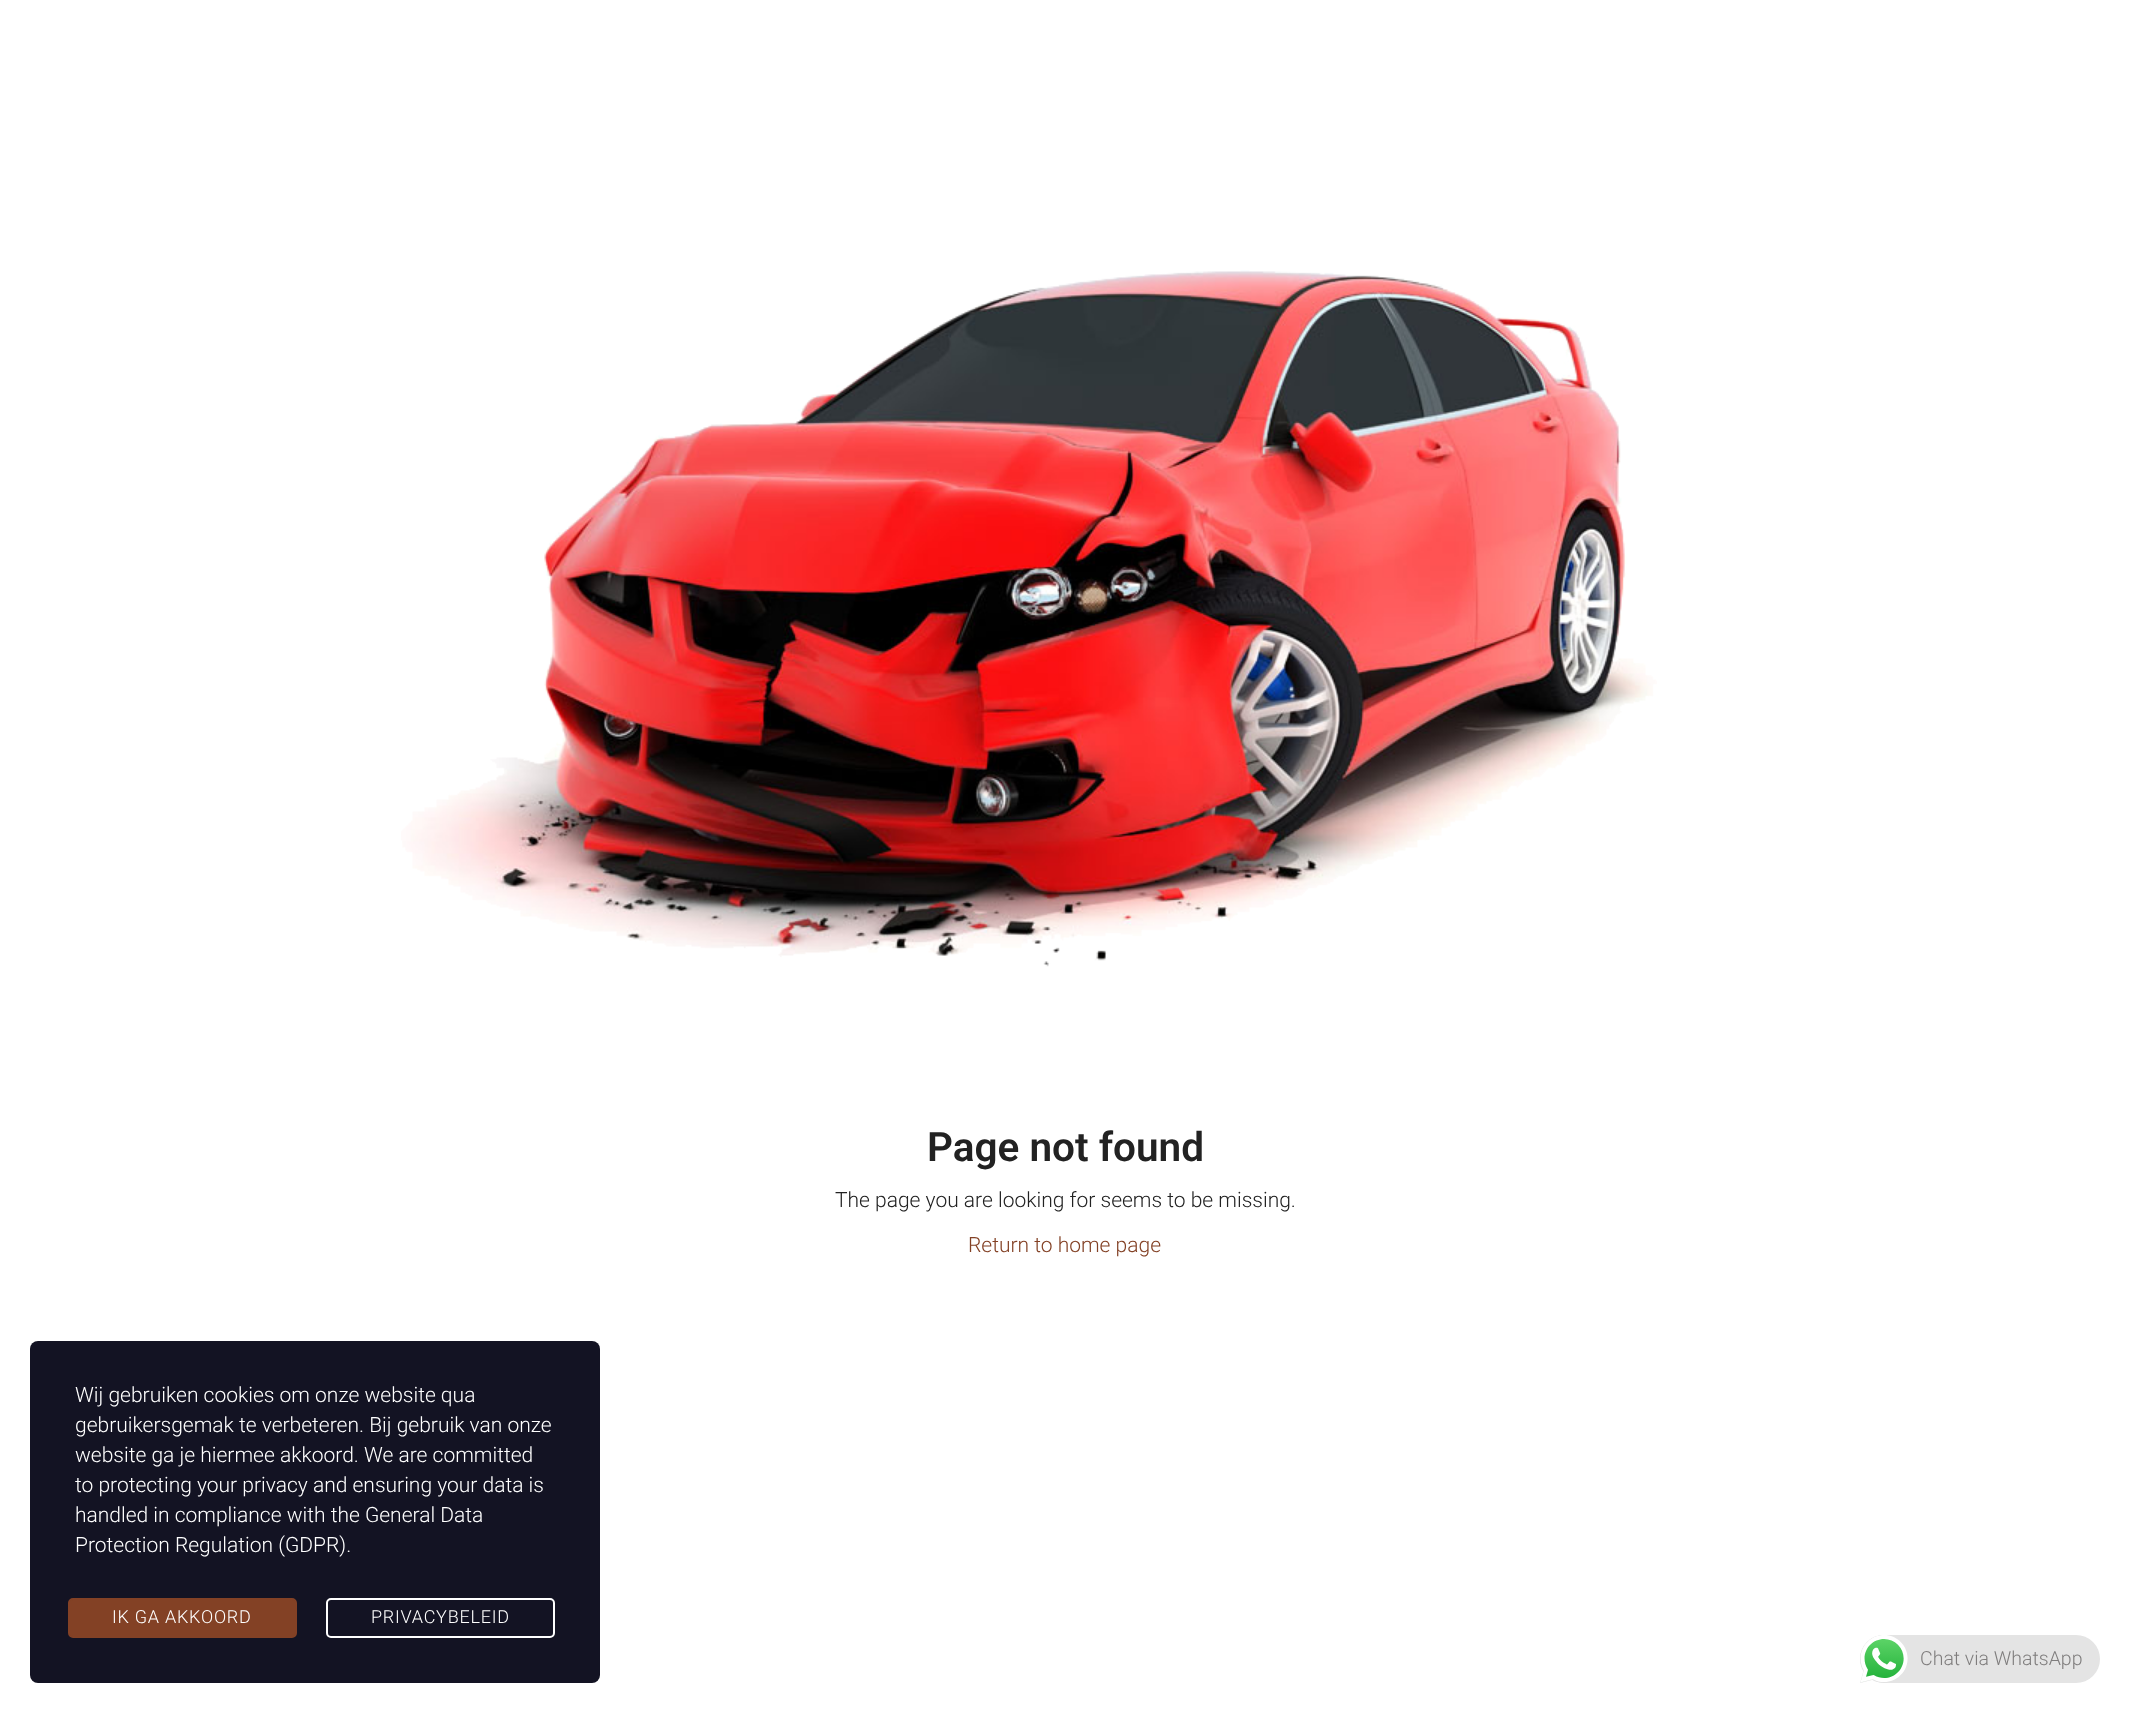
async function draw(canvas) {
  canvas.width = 2130
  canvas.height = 1712
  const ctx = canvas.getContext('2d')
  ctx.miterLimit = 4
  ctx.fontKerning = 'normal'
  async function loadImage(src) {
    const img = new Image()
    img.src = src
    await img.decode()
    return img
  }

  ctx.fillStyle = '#fff'
  ctx.fillRect(0, 0, 2130, 1712)
  ctx.drawImage(await loadImage('image0.png'), 401, 270, 1256, 697)
  ctx.font = '600 40.5px Roboto'
  ctx.fillStyle = '#222'
  ctx.fillText('Page not found', 927, 1161)
  ctx.font = '300 21px Roboto'
  ctx.fillText('The page you are looking for seems to be missing.', 835, 1207)
  ctx.fillStyle = '#834125'
  ctx.fillText('Return to home page', 968, 1252)
  ctx.fillStyle = '#131323'
  ctx.beginPath()
  ctx.roundRect(30, 1341, 570, 342, 8)
  ctx.fill()
  ctx.fillStyle = '#fff'
  ctx.fillText('Wij gebruiken cookies om onze website qua', 75, 1402)
  ctx.fillText('gebruikersgemak te verbeteren. Bij gebruik van onze', 75, 1432)
  ctx.fillText('website ga je hiermee akkoord. We are committed', 75, 1462)
  ctx.fillText('to protecting your privacy and ensuring your data is', 75, 1492)
  ctx.fillText('handled in compliance with the General Data', 75, 1522)
  ctx.fillText('Protection Regulation (GDPR).', 75, 1552)
  ctx.fillStyle = '#834125'
  ctx.beginPath()
  ctx.roundRect(69, 1599, 227, 38, 4)
  ctx.fill()
  ctx.strokeStyle = '#834125'
  ctx.lineWidth = 2
  ctx.stroke()
  ctx.letterSpacing = '0.75px'
  ctx.font = '300 18px Roboto'
  ctx.fillStyle = '#fff'
  ctx.fillText('IK GA AKKOORD', 112, 1623)
  ctx.beginPath()
  ctx.roundRect(327, 1599, 227, 38, 4)
  ctx.strokeStyle = '#fff'
  ctx.stroke()
  ctx.fillText('PRIVACYBELEID', 371, 1623)
  ctx.fillStyle = '#e4e4e4'
  ctx.beginPath()
  ctx.roundRect(1860, 1635, 240, 48, 24)
  ctx.fill()
  ctx.drawImage(await loadImage('image1.png'), 1860, 1635, 48, 48)
  ctx.letterSpacing = '0px'
  ctx.font = '300 19.5px Roboto'
  ctx.fillStyle = '#7f7d7d'
  ctx.fillText('Chat via WhatsApp', 1920, 1665)
}

draw(document.querySelector('canvas'))
